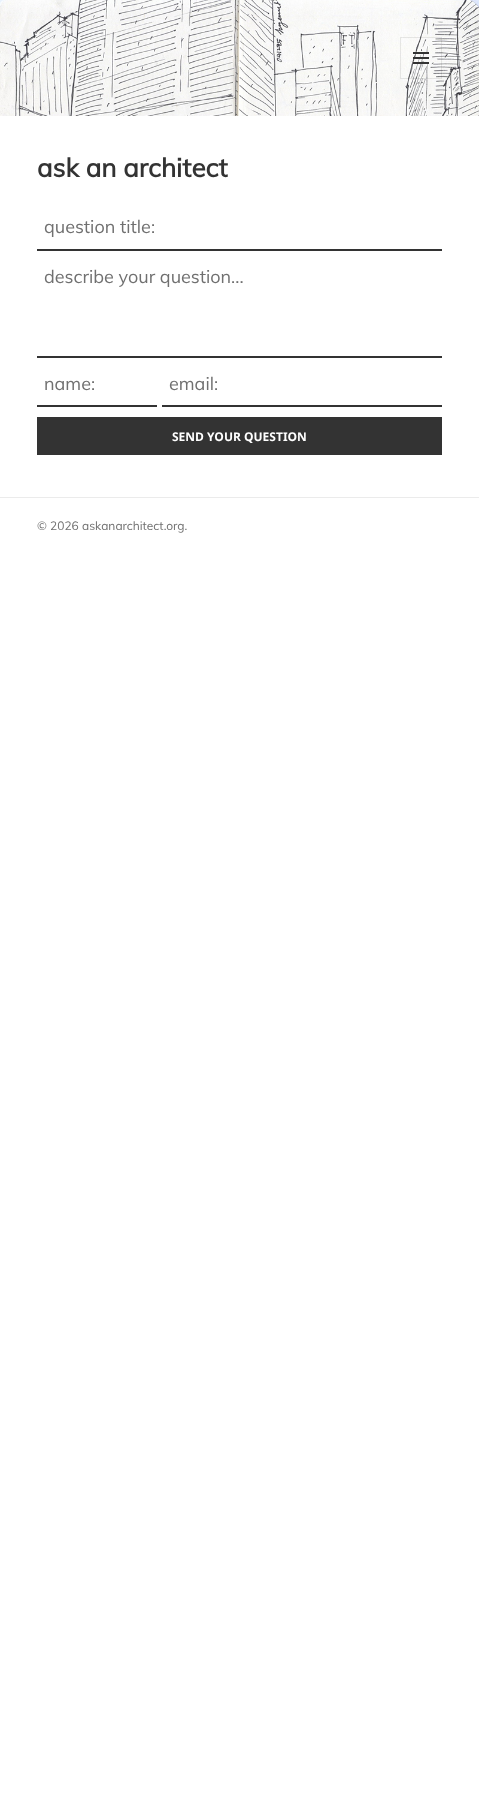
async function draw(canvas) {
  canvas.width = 479
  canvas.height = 1801
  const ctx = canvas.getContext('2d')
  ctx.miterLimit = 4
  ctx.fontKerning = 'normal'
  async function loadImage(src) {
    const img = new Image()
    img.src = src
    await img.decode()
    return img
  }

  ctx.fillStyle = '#fff'
  ctx.fillRect(0, 0, 479, 1801)
  ctx.drawImage(await loadImage('image0.png'), 0, 0, 479, 116)
  ctx.strokeStyle = '#3333331a'
  ctx.strokeRect(400.5, 37.5, 41, 41)
  ctx.drawImage(await loadImage('image1.png'), 413, 52, 16, 12)
  ctx.font = 'bold 26px Muli'
  ctx.fillStyle = '#333'
  ctx.fillText('ask an architect', 37, 177)
  ctx.fillRect(37, 249, 405, 2)
  ctx.font = '18px Muli'
  ctx.fillStyle = '#707070'
  ctx.fillText('question title:', 44, 233)
  ctx.fillStyle = '#333'
  ctx.fillRect(37, 356, 405, 2)
  ctx.fillStyle = '#707070'
  ctx.fillText('describe your question...', 44, 283)
  ctx.fillStyle = '#333'
  ctx.fillRect(37, 405, 120, 2)
  ctx.fillStyle = '#707070'
  ctx.fillText('name:', 44, 390)
  ctx.fillStyle = '#333'
  ctx.fillRect(162, 405, 280, 2)
  ctx.fillStyle = '#707070'
  ctx.fillText('email:', 169, 390)
  ctx.fillStyle = '#333'
  ctx.fillRect(37, 417, 405, 38)
  ctx.font = 'bold 12px Noto Sans'
  ctx.fillStyle = '#fff'
  ctx.fillText('SEND YOUR QUESTION', 172, 441)
  ctx.fillStyle = '#ebebeb'
  ctx.fillRect(0, 497, 479, 1)
  ctx.font = '12px Muli'
  ctx.fillStyle = '#707070'
  ctx.fillText('© 2026 askanarchitect.org.', 37, 530)
}

draw(document.querySelector('canvas'))
